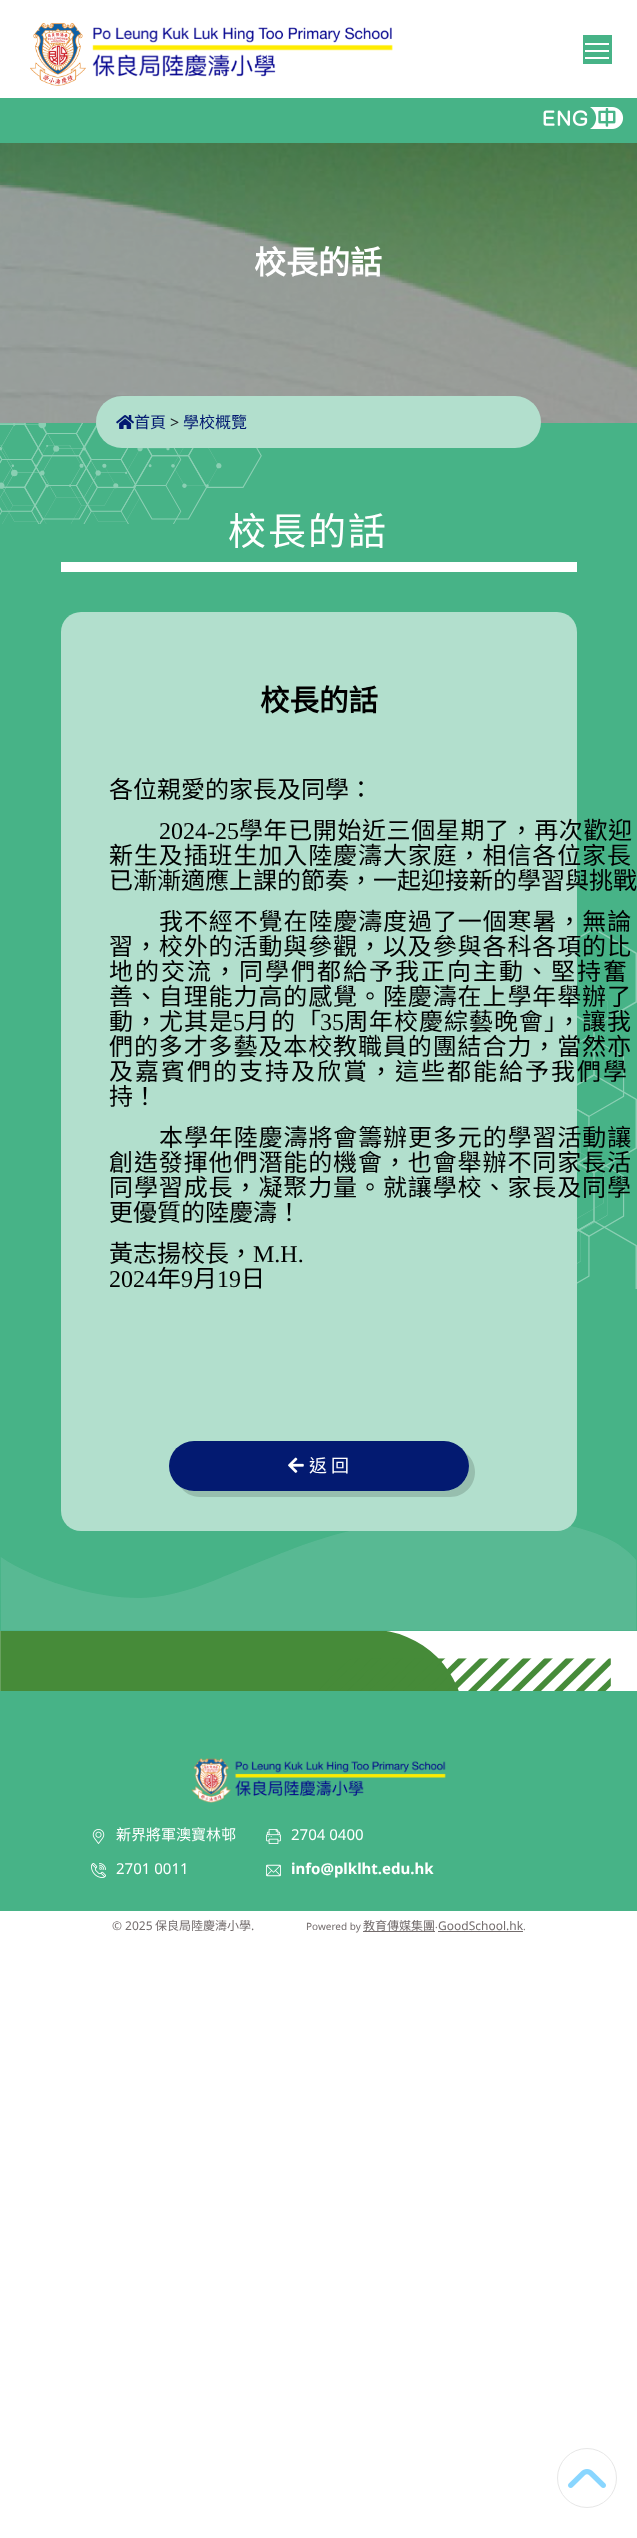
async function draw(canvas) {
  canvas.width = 637
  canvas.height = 2538
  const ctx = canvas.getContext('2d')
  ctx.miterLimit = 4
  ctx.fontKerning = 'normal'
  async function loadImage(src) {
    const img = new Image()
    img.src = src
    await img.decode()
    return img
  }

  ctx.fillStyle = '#fff'
  ctx.fillRect(0, 0, 637, 2538)
  ctx.drawImage(await loadImage('image0.png'), 30, 23, 363, 63)
  ctx.fillStyle = '#47b387'
  ctx.fillRect(0, 98, 637, 45)
  ctx.drawImage(await loadImage('image1.png'), 543, 107, 81, 22)
  ctx.fillRect(583, 35, 29, 29)
  ctx.fillStyle = '#fff'
  ctx.fillRect(585, 50, 24, 2)
  ctx.fillRect(585, 43, 24, 2)
  ctx.fillRect(585, 57, 24, 2)
  ctx.fillStyle = '#47b387'
  ctx.fillRect(0, 423, 637, 1208)
  ctx.drawImage(await loadImage('image2.png'), 0, 423, 637, 1208)
  ctx.drawImage(await loadImage('image3.png'), 0, 143, 637, 280)
  ctx.font = 'bold 32px Noto Sans CJK HK'
  ctx.fillStyle = '#fff'
  ctx.fillText('校長的話', 254, 274)
  ctx.fillStyle = '#b2dfcd'
  ctx.beginPath()
  ctx.roundRect(96, 396, 445, 52, 26)
  ctx.fill()
  ctx.drawImage(await loadImage('image4.png'), 116, 415, 18, 14)
  ctx.font = '16px Noto Sans CJK HK'
  ctx.fillStyle = '#031a71'
  ctx.fillText('首頁', 134, 428)
  ctx.font = '16px Noto Sans'
  ctx.fillStyle = '#212529'
  ctx.fillText('>', 170, 428)
  ctx.font = '16px Noto Sans CJK HK'
  ctx.fillStyle = '#031a71'
  ctx.fillText('學校概覽', 183, 428)
  ctx.fillStyle = '#fff'
  ctx.fillRect(61, 562, 516, 10)
  ctx.letterSpacing = '2px'
  ctx.font = '38px Noto Sans CJK HK'
  ctx.fillText('校長的話', 228, 545)
  ctx.fillStyle = '#b2dfcd'
  ctx.beginPath()
  ctx.roundRect(61, 612, 516, 919, 20)
  ctx.fill()
  ctx.letterSpacing = '0px'
  ctx.font = 'bold 29.5px Noto Sans CJK HK'
  ctx.fillStyle = '#000'
  ctx.fillText('校長的話', 260, 711)
  ctx.font = '24px Noto Sans CJK HK'
  ctx.fillText('各位親愛的家長及同學：', 109, 798)
  ctx.font = '24px Liberation Serif'
  ctx.fillText('2024-25', 159, 839)
  ctx.letterSpacing = '0.6px'
  ctx.font = '24px Noto Sans CJK HK'
  ctx.fillText('學年已開始近三個星期了，再次歡迎', 239, 839)
  ctx.letterSpacing = '0.9px'
  ctx.fillText('新生及插班生加入陸慶濤大家庭，相信各位家長', 109, 864)
  ctx.letterSpacing = '0px'
  ctx.fillText('已漸漸適應上課的節奏，一起迎接新的學習與挑戰', 109, 889)
  ctx.letterSpacing = '0.9px'
  ctx.fillText('我不經不覺在陸慶濤度過了一個寒暑，無論', 159, 930)
  ctx.fillText('習，校外的活動與參觀，以及參與各科各項的比', 109, 955)
  ctx.letterSpacing = '2px'
  ctx.fillText('地的交流，同學們都給予我正向主動、堅持奮', 109, 980)
  ctx.letterSpacing = '0.9px'
  ctx.fillText('善、自理能力高的感覺。陸慶濤在上學年舉辦了', 109, 1005)
  ctx.letterSpacing = '1px'
  ctx.fillText('動，尤其是', 109, 1030)
  ctx.letterSpacing = '0px'
  ctx.font = '24px Liberation Serif'
  ctx.fillText('5', 233, 1030)
  ctx.letterSpacing = '2px'
  ctx.font = '24px Noto Sans CJK HK'
  ctx.fillText('月的「', 245, 1030)
  ctx.letterSpacing = '0px'
  ctx.font = '24px Liberation Serif'
  ctx.fillText('35', 320, 1030)
  ctx.letterSpacing = '1px'
  ctx.font = '24px Noto Sans CJK HK'
  ctx.fillText('周年校慶綜藝晚會」，讓我', 344, 1030)
  ctx.letterSpacing = '0.9px'
  ctx.fillText('們的多才多藝及本校教職員的團結合力，當然亦', 109, 1055)
  ctx.letterSpacing = '2px'
  ctx.fillText('及嘉賓們的支持及欣賞，這些都能給予我們學', 109, 1080)
  ctx.letterSpacing = '0px'
  ctx.fillText('持！', 109, 1105)
  ctx.letterSpacing = '0.9px'
  ctx.fillText('本學年陸慶濤將會籌辦更多元的學習活動讓', 159, 1146)
  ctx.fillText('創造發揮他們潛能的機會，也會舉辦不同家長活', 109, 1171)
  ctx.fillText('同學習成長，凝聚力量。就讓學校、家長及同學', 109, 1196)
  ctx.letterSpacing = '0px'
  ctx.fillText('更優質的陸慶濤！', 109, 1221)
  ctx.fillText('黃志揚校長，', 109, 1262)
  ctx.font = '24px Liberation Serif'
  ctx.fillText('M.H.', 253, 1262)
  ctx.fillText('2024', 109, 1287)
  ctx.font = '24px Noto Sans CJK HK'
  ctx.fillText('年', 157, 1287)
  ctx.font = '24px Liberation Serif'
  ctx.fillText('9', 181, 1287)
  ctx.font = '24px Noto Sans CJK HK'
  ctx.fillText('月', 193, 1287)
  ctx.font = '24px Liberation Serif'
  ctx.fillText('19', 217, 1287)
  ctx.font = '24px Noto Sans CJK HK'
  ctx.fillText('日', 241, 1287)
  ctx.fillStyle = '#97beae'
  ctx.beginPath()
  ctx.moveTo(180, 1486)
  ctx.bezierCurveTo(184, 1493, 192, 1497, 200, 1497)
  ctx.lineTo(450, 1497)
  ctx.bezierCurveTo(464, 1497, 475, 1486, 475, 1472)
  ctx.bezierCurveTo(475, 1464, 471, 1456, 464, 1452)
  ctx.bezierCurveTo(467, 1456, 469, 1461, 469, 1466)
  ctx.bezierCurveTo(469, 1480, 458, 1491, 444, 1491)
  ctx.lineTo(194, 1491)
  ctx.bezierCurveTo(189, 1491, 184, 1489, 180, 1486)
  ctx.closePath()
  ctx.fill()
  ctx.fillStyle = '#031a71'
  ctx.beginPath()
  ctx.roundRect(169, 1441, 300, 50, 25)
  ctx.fill()
  ctx.drawImage(await loadImage('image5.png'), 288, 1457, 16, 16)
  ctx.font = '18px Noto Sans CJK HK'
  ctx.fillStyle = '#fff'
  ctx.fillText('返 回', 309, 1472)
  ctx.drawImage(await loadImage('image6.png'), 0, 1631, 611, 60)
  ctx.fillStyle = '#47b387'
  ctx.fillRect(0, 1691, 637, 220)
  ctx.drawImage(await loadImage('image7.png'), 191, 1758, 255, 45)
  ctx.drawImage(await loadImage('image8.png'), 92, 1829, 13, 15)
  ctx.font = '15px Noto Sans CJK HK'
  ctx.fillStyle = '#fff'
  ctx.fillText('新界將軍澳寶林邨', 116, 1840)
  ctx.drawImage(await loadImage('image9.png'), 91, 1863, 15, 15)
  ctx.font = '15px Noto Sans'
  ctx.fillText('2701 0011', 116, 1874)
  ctx.drawImage(await loadImage('image10.png'), 266, 1829, 15, 15)
  ctx.fillText('2704 0400', 291, 1840)
  ctx.drawImage(await loadImage('image11.png'), 266, 1864, 15, 13)
  ctx.font = 'bold 15px Noto Sans'
  ctx.fillText('info@plklht.edu.hk', 291, 1874)
  ctx.font = '12px Noto Sans'
  ctx.fillStyle = '#736c6c'
  ctx.fillText('© 2025', 112, 1930)
  ctx.font = '12px Noto Sans CJK HK'
  ctx.fillText('保良局陸慶濤小學', 155, 1930)
  ctx.font = '12px Noto Sans'
  ctx.fillText('.', 251, 1930)
  ctx.font = '10px Noto Sans'
  ctx.fillText('Powered by', 306, 1930)
  ctx.font = '12px Noto Sans CJK HK'
  ctx.fillText('教育傳媒集團', 363, 1930)
  ctx.fillRect(363, 1931, 72, 1)
  ctx.font = '10px Noto Sans'
  ctx.fillText('‧', 435, 1930)
  ctx.font = '12px Noto Sans'
  ctx.fillText('GoodSchool.hk', 438, 1930)
  ctx.fillRect(438, 1931, 85, 1)
  ctx.font = '10px Noto Sans'
  ctx.fillText('.', 523, 1930)
  ctx.beginPath()
  ctx.arc(587, 2478, 29.5, 0, 2 * Math.PI)
  ctx.strokeStyle = '#e7e7e7'
  ctx.stroke()
  ctx.drawImage(await loadImage('image12.png'), 568, 2469, 38, 19)
}

draw(document.querySelector('canvas'))
